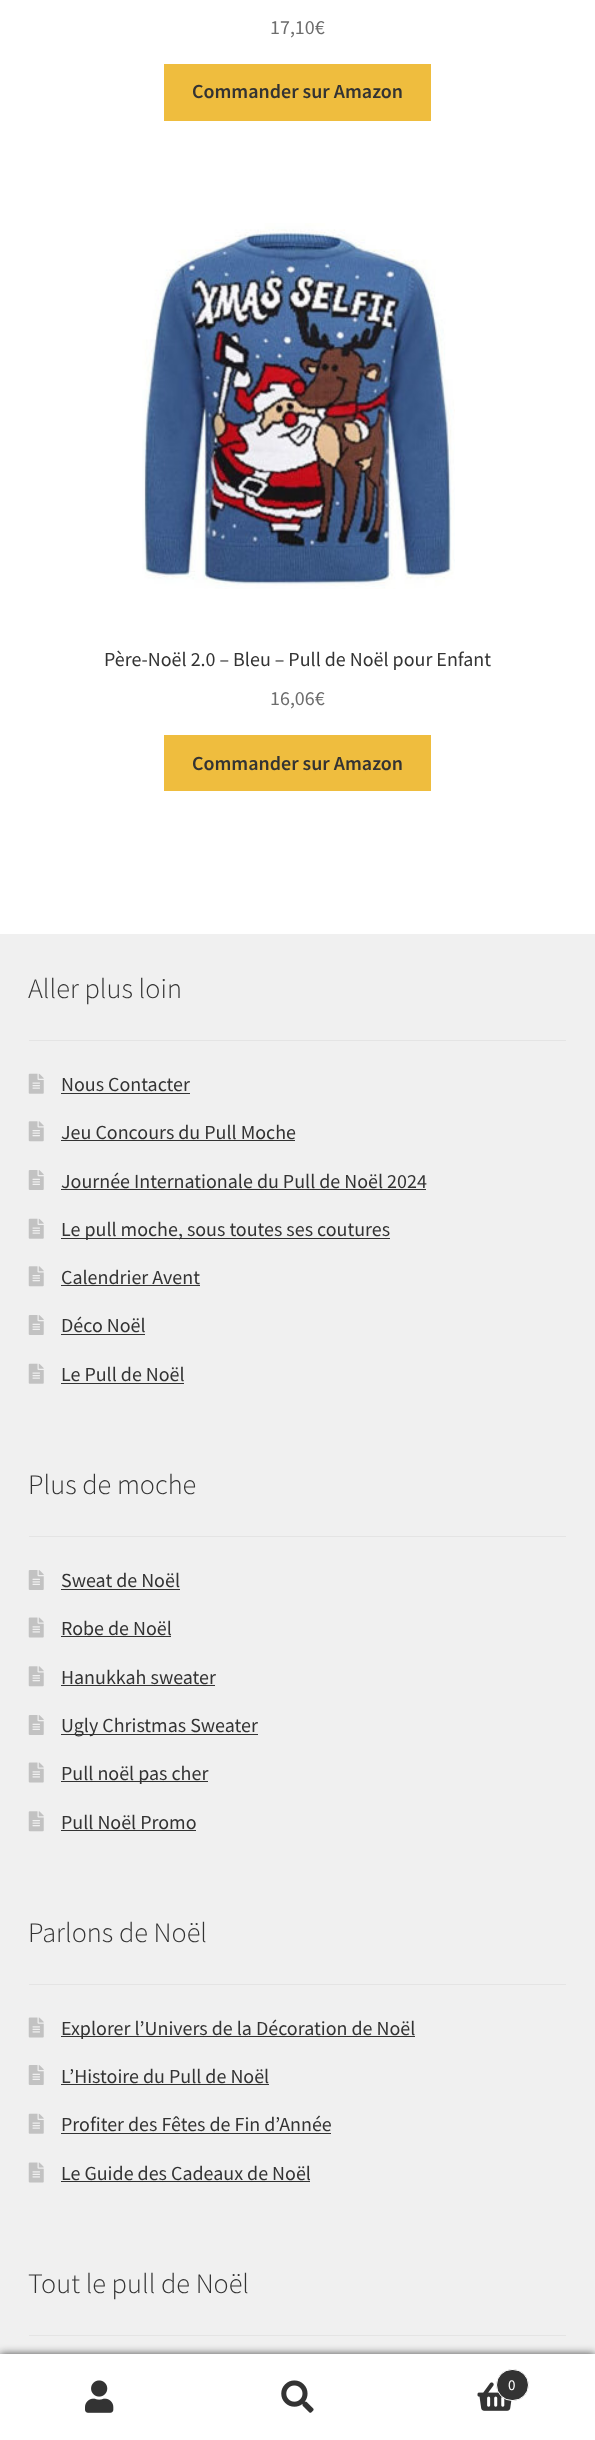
async function draw(canvas) {
  canvas.width = 595
  canvas.height = 2440
  const ctx = canvas.getContext('2d')
  ctx.miterLimit = 4
  ctx.fontKerning = 'normal'
  async function loadImage(src) {
    const img = new Image()
    img.src = src
    await img.decode()
    return img
  }

  ctx.fillStyle = '#fff'
  ctx.fillRect(0, 0, 595, 2440)
  ctx.font = '20px Source Sans Pro'
  ctx.fillStyle = '#6d6d6d'
  ctx.fillText('17,10€', 270, 34)
  ctx.fillStyle = '#efbd3e'
  ctx.fillRect(164, 64, 267, 57)
  ctx.font = '600 20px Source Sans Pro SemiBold'
  ctx.fillStyle = '#333'
  ctx.fillText('Commander sur Amazon', 192, 98)
  ctx.drawImage(await loadImage('image0.png'), 142, 223, 313, 366)
  ctx.font = '20px Source Sans Pro'
  ctx.fillText('Père-Noël 2.0 – Bleu – Pull de Noël pour Enfant', 104, 666)
  ctx.fillStyle = '#6d6d6d'
  ctx.fillText('16,06€', 270, 705)
  ctx.fillStyle = '#efbd3e'
  ctx.fillRect(164, 735, 267, 56)
  ctx.font = '600 20px Source Sans Pro SemiBold'
  ctx.fillStyle = '#333'
  ctx.fillText('Commander sur Amazon', 192, 770)
  ctx.fillStyle = '#f0f0f0'
  ctx.fillRect(0, 934, 595, 1420)
  ctx.fillStyle = '#e4e4e4'
  ctx.fillRect(29, 1040, 537, 1)
  ctx.font = '300 28.25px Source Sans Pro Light'
  ctx.fillStyle = '#333'
  ctx.fillText('Aller plus loin', 28, 998)
  ctx.drawImage(await loadImage('image1.png'), 28, 1073, 16, 21)
  ctx.font = '20px Source Sans Pro'
  ctx.fillText('Nous Contacter', 61, 1091)
  ctx.fillRect(61, 1093, 129, 1)
  ctx.drawImage(await loadImage('image2.png'), 28, 1121, 16, 21)
  ctx.fillText('Jeu Concours du Pull Moche', 61, 1139)
  ctx.fillRect(61, 1140, 234, 1)
  ctx.drawImage(await loadImage('image3.png'), 28, 1170, 16, 20)
  ctx.fillText('Journée Internationale du Pull de Noël 2024', 61, 1188)
  ctx.fillRect(61, 1189, 365, 1)
  ctx.drawImage(await loadImage('image1.png'), 28, 1218, 16, 21)
  ctx.fillRect(61, 1238, 329, 1)
  ctx.fillText('Le pull moche, sous toutes ses coutures', 61, 1236)
  ctx.drawImage(await loadImage('image2.png'), 28, 1266, 16, 21)
  ctx.fillText('Calendrier Avent', 61, 1284)
  ctx.fillRect(61, 1285, 139, 1)
  ctx.drawImage(await loadImage('image3.png'), 28, 1315, 16, 20)
  ctx.fillText('Déco Noël', 61, 1332)
  ctx.fillRect(61, 1334, 84, 1)
  ctx.drawImage(await loadImage('image1.png'), 28, 1363, 16, 21)
  ctx.fillText('Le Pull de Noël', 61, 1381)
  ctx.fillRect(61, 1383, 123, 1)
  ctx.fillStyle = '#e4e4e4'
  ctx.fillRect(29, 1536, 537, 1)
  ctx.font = '300 28.25px Source Sans Pro Light'
  ctx.fillStyle = '#333'
  ctx.fillText('Plus de moche', 28, 1494)
  ctx.drawImage(await loadImage('image3.png'), 28, 1570, 16, 20)
  ctx.font = '20px Source Sans Pro'
  ctx.fillText('Sweat de Noël', 61, 1587)
  ctx.fillRect(61, 1589, 119, 1)
  ctx.drawImage(await loadImage('image4.png'), 28, 1617, 16, 21)
  ctx.fillText('Robe de Noël', 61, 1635)
  ctx.fillRect(61, 1636, 110, 1)
  ctx.drawImage(await loadImage('image2.png'), 28, 1666, 16, 21)
  ctx.fillText('Hanukkah sweater', 61, 1684)
  ctx.fillRect(61, 1685, 154, 1)
  ctx.drawImage(await loadImage('image3.png'), 28, 1715, 16, 20)
  ctx.fillRect(61, 1734, 197, 1)
  ctx.fillText('Ugly Christmas Sweater', 61, 1732)
  ctx.drawImage(await loadImage('image4.png'), 28, 1762, 16, 21)
  ctx.fillRect(61, 1781, 147, 1)
  ctx.fillText('Pull noël pas cher', 61, 1780)
  ctx.drawImage(await loadImage('image2.png'), 28, 1811, 16, 21)
  ctx.fillText('Pull Noël Promo', 61, 1829)
  ctx.fillRect(61, 1830, 135, 1)
  ctx.fillStyle = '#e4e4e4'
  ctx.fillRect(29, 1984, 537, 1)
  ctx.font = '300 28.25px Source Sans Pro Light'
  ctx.fillStyle = '#333'
  ctx.fillText('Parlons de Noël', 28, 1942)
  ctx.drawImage(await loadImage('image4.png'), 28, 2017, 16, 21)
  ctx.fillRect(61, 2036, 354, 1)
  ctx.font = '20px Source Sans Pro'
  ctx.fillText('Explorer l’Univers de la Décoration de Noël', 61, 2035)
  ctx.drawImage(await loadImage('image3.png'), 28, 2065, 16, 20)
  ctx.fillText('L’Histoire du Pull de Noël', 61, 2083)
  ctx.fillRect(61, 2084, 208, 1)
  ctx.drawImage(await loadImage('image1.png'), 28, 2113, 16, 21)
  ctx.fillText('Profiter des Fêtes de Fin d’Année', 61, 2131)
  ctx.fillRect(61, 2133, 270, 1)
  ctx.drawImage(await loadImage('image4.png'), 28, 2162, 16, 21)
  ctx.fillText('Le Guide des Cadeaux de Noël', 61, 2180)
  ctx.fillRect(61, 2181, 249, 1)
  ctx.fillStyle = '#e4e4e4'
  ctx.fillRect(29, 2335, 537, 1)
  ctx.font = '300 28.25px Source Sans Pro Light'
  ctx.fillStyle = '#333'
  ctx.fillText('Tout le pull de Noël', 28, 2293)
  ctx.fillStyle = '#000000b3'
  ctx.filter = 'blur(4px)'
  ctx.beginPath()
  ctx.rect(0, 2354, 595, 86)
  ctx.fill()
  ctx.filter = 'none'
  ctx.fillStyle = '#fff'
  ctx.fillRect(0, 2354, 595, 1)
  ctx.fillRect(0, 2355, 595, 85)
  ctx.drawImage(await loadImage('image5.png'), 85, 2380, 29, 33)
  ctx.drawImage(await loadImage('image6.png'), 281, 2380, 33, 33)
  ctx.drawImage(await loadImage('image7.png'), 477, 2382, 35, 29)
  ctx.fillStyle = '#333'
  ctx.beginPath()
  ctx.roundRect(496.5, 2369.5, 32, 31, 15.5)
  ctx.fill()
  ctx.strokeStyle = '#fff'
  ctx.stroke()
  ctx.font = '15px Source Sans Pro'
  ctx.fillStyle = '#fff'
  ctx.fillText('0', 508, 2390)
}

draw(document.querySelector('canvas'))
